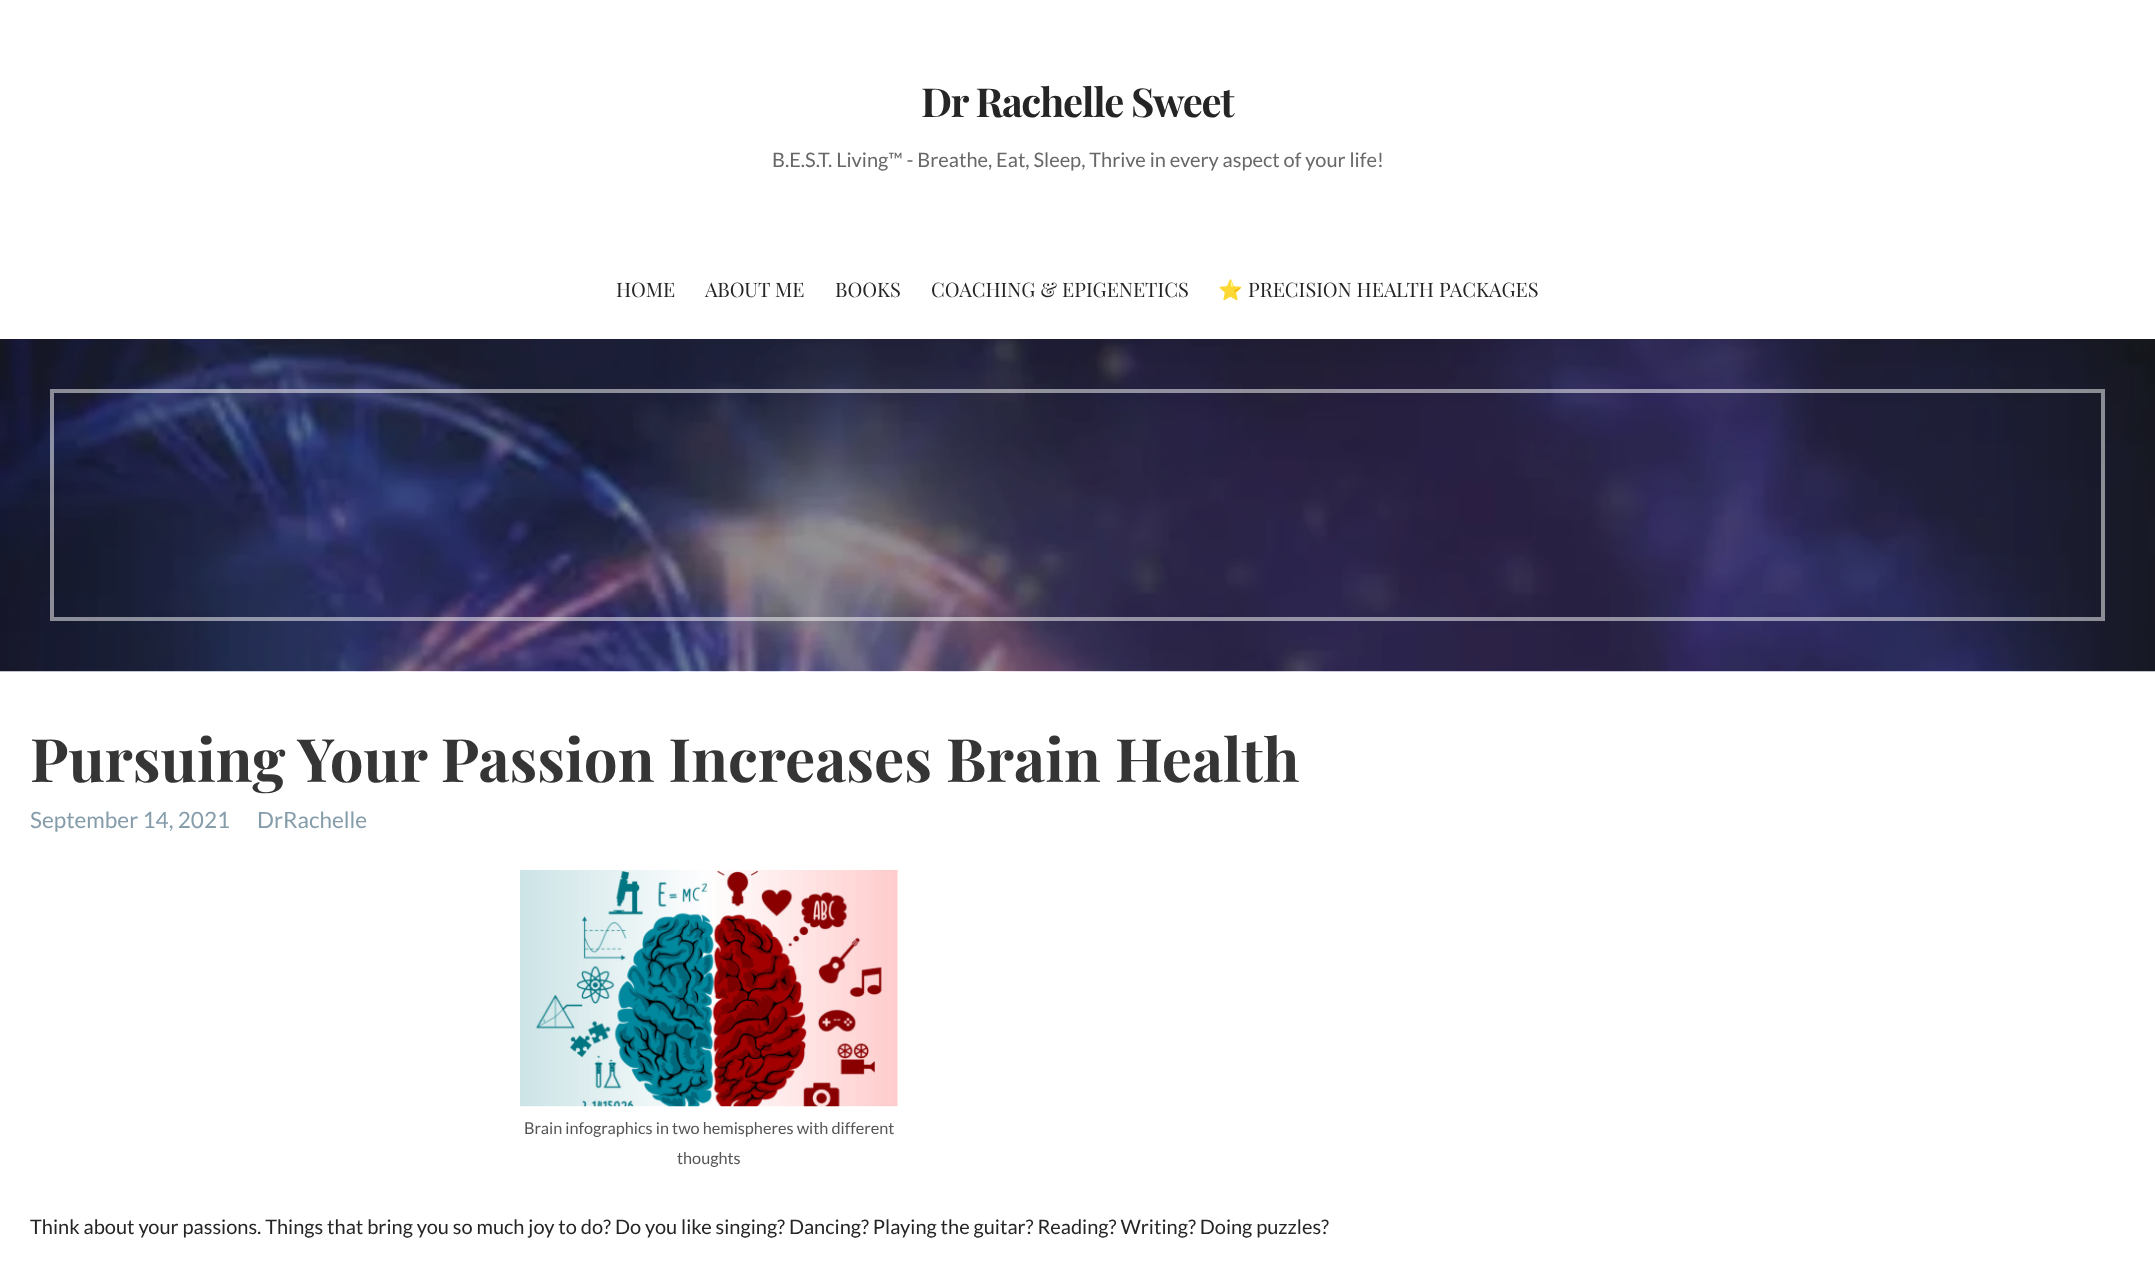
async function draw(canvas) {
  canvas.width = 2155
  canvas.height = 1262
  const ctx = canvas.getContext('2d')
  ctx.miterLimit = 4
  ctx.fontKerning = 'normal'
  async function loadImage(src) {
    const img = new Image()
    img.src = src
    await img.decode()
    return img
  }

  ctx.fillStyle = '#fff'
  ctx.fillRect(0, 0, 2155, 1262)
  ctx.letterSpacing = '-1.25px'
  ctx.font = 'bold 40px Playfair Display'
  ctx.fillStyle = '#252525'
  ctx.fillText('Dr Rachelle Sweet', 921, 117)
  ctx.letterSpacing = '0px'
  ctx.font = '20px Lato'
  ctx.fillStyle = '#686868'
  ctx.fillText('B.E.S.T. Living™ - Breathe, Eat, Sleep, Thrive in every aspect of your life!', 772, 167)
  ctx.font = '20px Playfair Display'
  ctx.fillStyle = '#252525'
  ctx.fillText('HOME', 616, 297)
  ctx.fillText('ABOUT ME', 705, 297)
  ctx.fillText('BOOKS', 835, 297)
  ctx.fillText('COACHING & EPIGENETICS', 931, 297)
  ctx.font = '20px Noto Color Emoji'
  ctx.fillText('⭐', 1218, 297)
  ctx.font = '20px Playfair Display'
  ctx.fillText('PRECISION HEALTH PACKAGES', 1248, 297)
  ctx.drawImage(await loadImage('image0.png'), 0, 339, 2155, 333)
  ctx.strokeStyle = '#ffffff80'
  ctx.lineWidth = 4
  ctx.strokeRect(52, 391, 2051, 228)
  ctx.font = 'bold 60px Playfair Display'
  ctx.fillStyle = '#353535'
  ctx.fillText('Pursuing Your Passion Increases Brain Health', 30, 782)
  ctx.font = '22.5px Lato'
  ctx.fillStyle = '#859caa'
  ctx.fillText('September 14, 2021', 30, 828)
  ctx.fillText('DrRachelle', 257, 828)
  ctx.drawImage(await loadImage('image1.png'), 520, 870, 378, 237)
  ctx.font = '16.25px Lato'
  ctx.fillStyle = '#555'
  ctx.fillText('Brain infographics in two hemispheres with different', 524, 1134)
  ctx.fillText('thoughts', 677, 1164)
  ctx.font = '20px Lato'
  ctx.fillStyle = '#252525'
  ctx.fillText('Think about your passions. Things that bring you so much joy to do? Do you like singing? Dancing? Playing the guitar? Reading? Writing? Doing puzzles?', 30, 1234)
}

draw(document.querySelector('canvas'))
